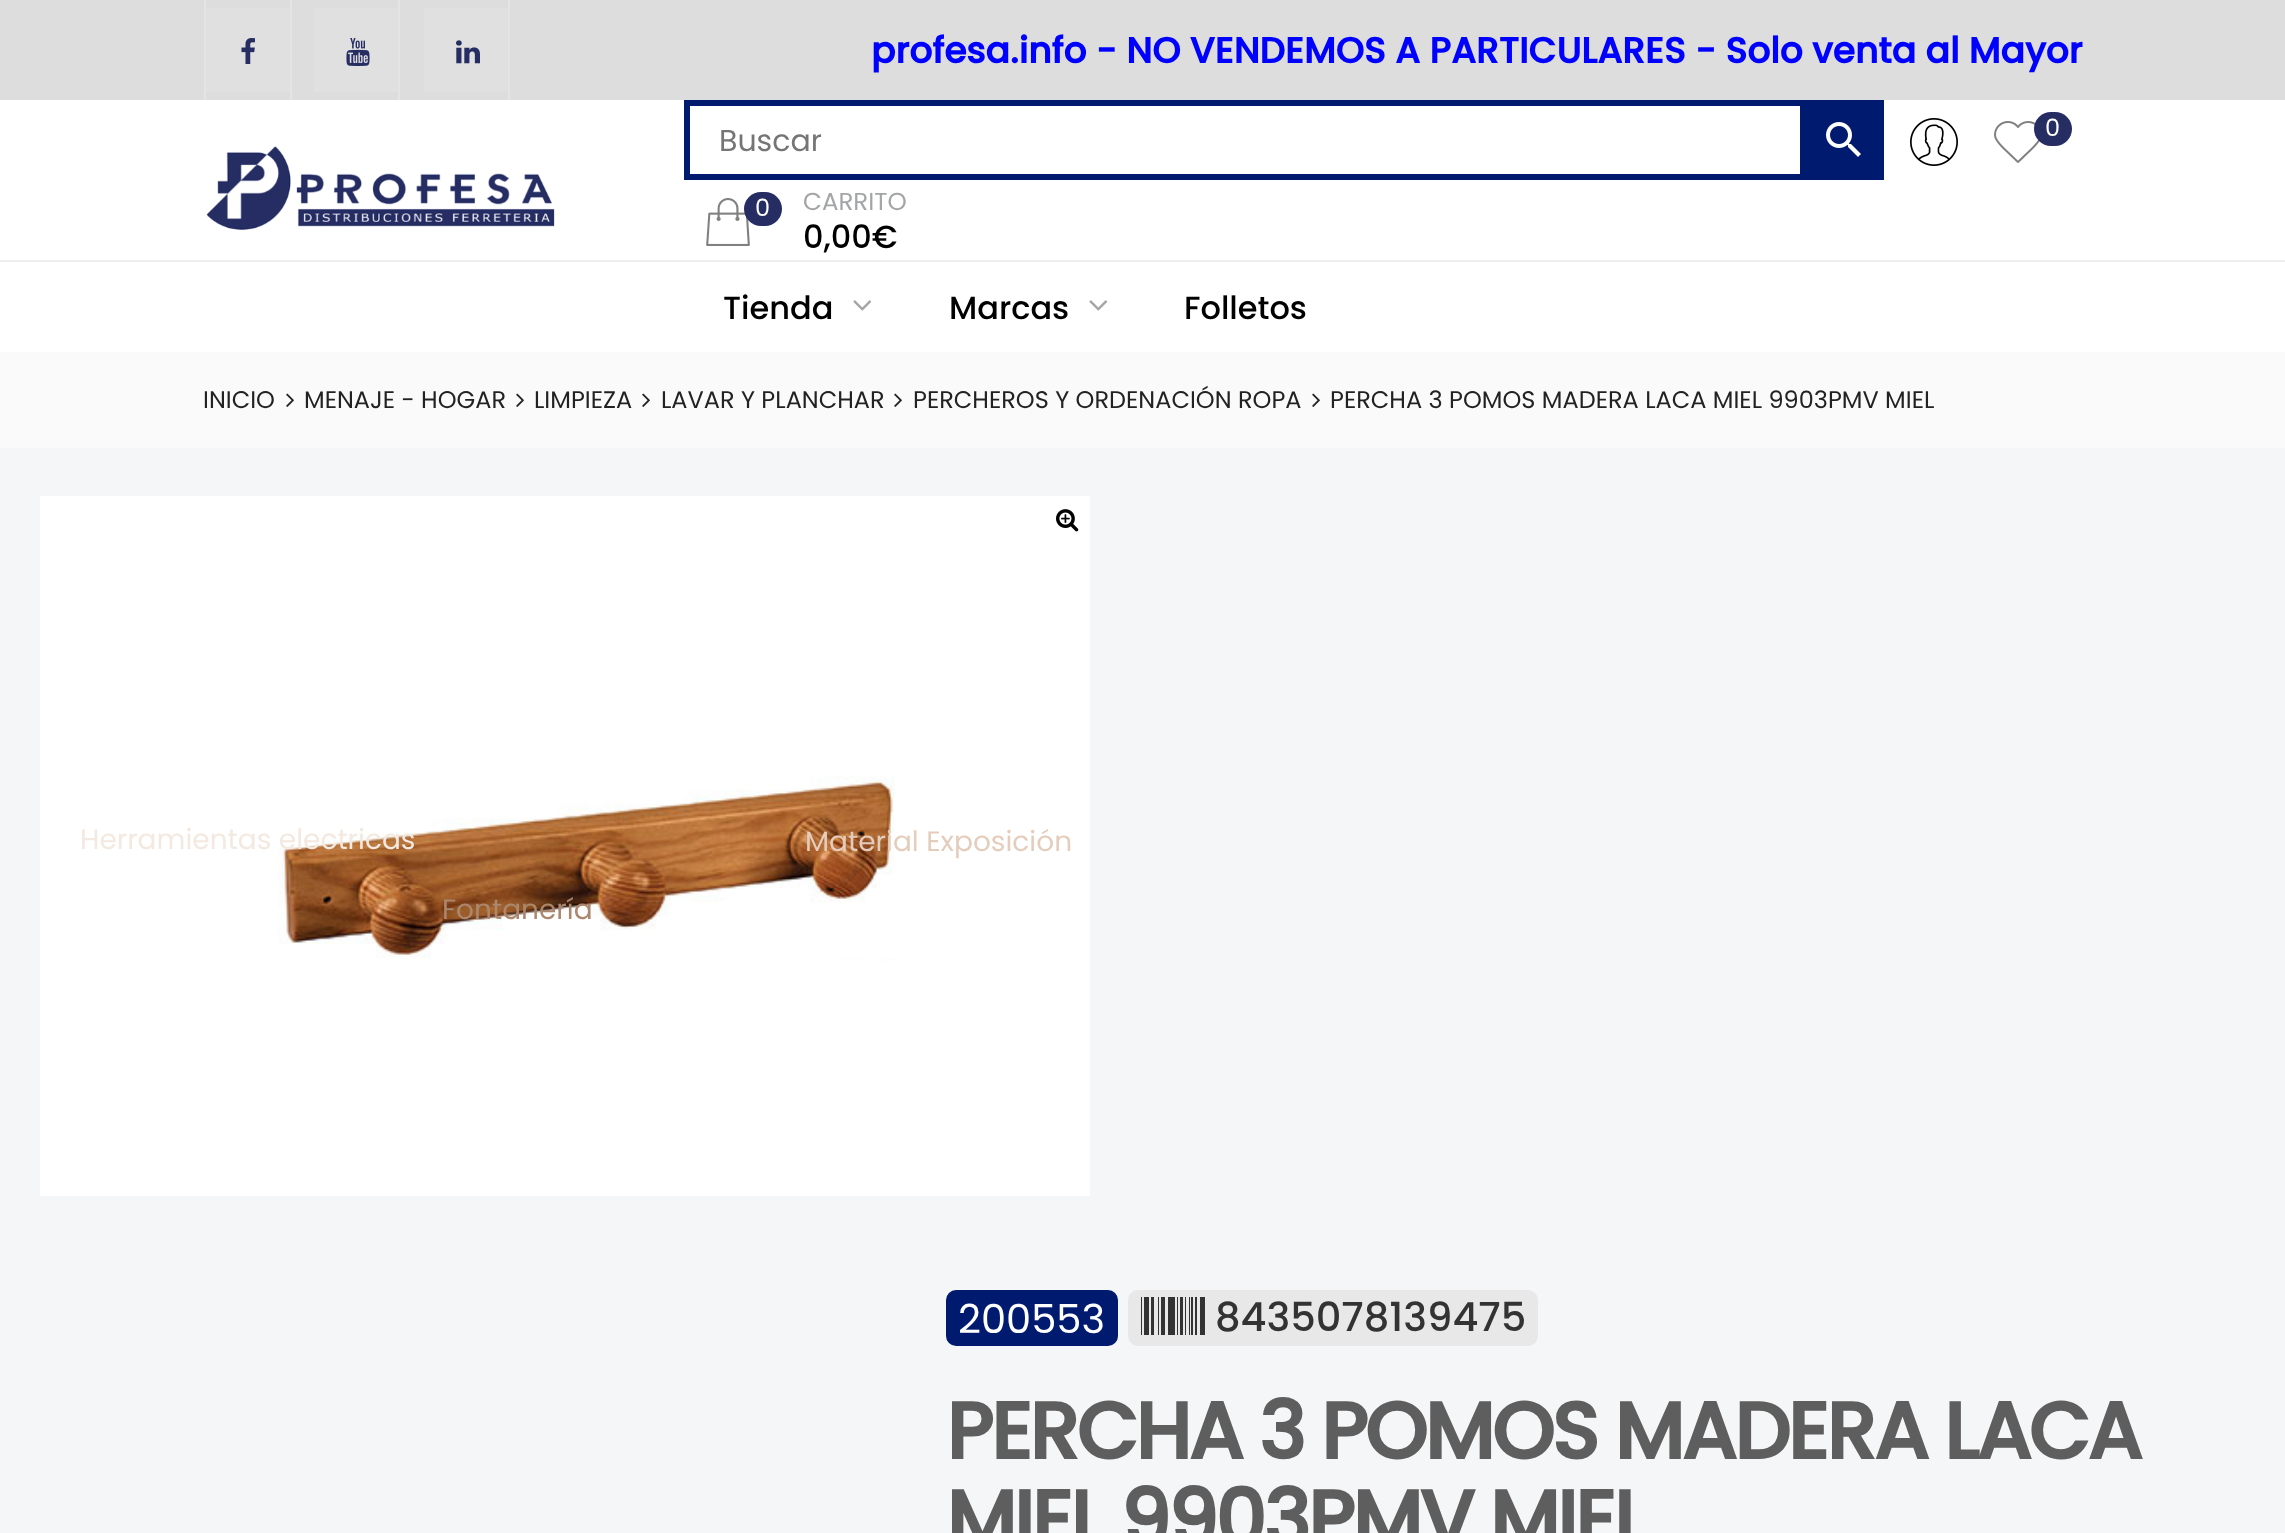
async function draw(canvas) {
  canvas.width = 2285
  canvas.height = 1533
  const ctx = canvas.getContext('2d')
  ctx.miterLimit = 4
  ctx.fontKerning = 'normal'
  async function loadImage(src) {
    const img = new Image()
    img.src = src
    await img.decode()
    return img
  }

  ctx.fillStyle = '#fff'
  ctx.fillRect(0, 0, 2285, 1533)
  ctx.fillStyle = '#ddd'
  ctx.fillRect(0, 0, 2285, 100)
  ctx.fillStyle = '#e4e4e4'
  ctx.fillRect(290, 0, 2, 100)
  ctx.fillRect(204, 0, 2, 100)
  ctx.fillStyle = '#e0e0e0'
  ctx.fillRect(206, 8, 84, 84)
  ctx.drawImage(await loadImage('image0.png'), 241, 38, 14, 26)
  ctx.fillStyle = '#e4e4e4'
  ctx.fillRect(398, 0, 2, 100)
  ctx.fillStyle = '#e0e0e0'
  ctx.fillRect(314, 8, 84, 84)
  ctx.drawImage(await loadImage('image1.png'), 346, 38, 24, 28)
  ctx.fillStyle = '#e4e4e4'
  ctx.fillRect(508, 0, 2, 100)
  ctx.fillStyle = '#e0e0e0'
  ctx.fillRect(424, 8, 84, 84)
  ctx.drawImage(await loadImage('image2.png'), 456, 40, 24, 24)
  ctx.font = 'bold 36px Poppins'
  ctx.fillStyle = '#00f'
  ctx.fillText('profesa.info - NO VENDEMOS A PARTICULARES - Solo venta al Mayor', 871, 63)
  ctx.drawImage(await loadImage('image3.png'), 206, 146, 349, 84)
  ctx.drawImage(await loadImage('image4.png'), 1910, 118, 48, 48)
  ctx.drawImage(await loadImage('image5.png'), 1994, 121, 46, 42)
  ctx.fillStyle = '#262d63'
  ctx.beginPath()
  ctx.roundRect(2034, 112, 38, 34, 17)
  ctx.fill()
  ctx.font = '24px Poppins'
  ctx.fillStyle = '#fff'
  ctx.fillText('0', 2045, 136)
  ctx.fillStyle = '#001a70'
  ctx.fillRect(1800, 100, 84, 6)
  ctx.fillRect(1878, 100, 6, 80)
  ctx.fillRect(1800, 174, 84, 6)
  ctx.fillRect(1800, 100, 2, 80)
  ctx.fillRect(684, 100, 1118, 6)
  ctx.fillRect(684, 174, 1118, 6)
  ctx.fillRect(684, 100, 6, 80)
  ctx.font = '30px Poppins'
  ctx.fillStyle = '#757575'
  ctx.fillText('Buscar', 719, 151)
  ctx.fillStyle = '#001a70'
  ctx.fillRect(1802, 106, 76, 68)
  ctx.drawImage(await loadImage('image6.png'), 1826, 122, 35, 35)
  ctx.drawImage(await loadImage('image7.png'), 706, 198, 44, 48)
  ctx.fillStyle = '#262d63'
  ctx.beginPath()
  ctx.roundRect(744, 192, 38, 34, 17)
  ctx.fill()
  ctx.font = '24px Poppins'
  ctx.fillStyle = '#fff'
  ctx.fillText('0', 755, 216)
  ctx.font = '24.5px Poppins'
  ctx.fillStyle = '#a3a5a7'
  ctx.fillText('CARRITO', 803, 210)
  ctx.font = '500 32px Poppins'
  ctx.fillStyle = '#000'
  ctx.fillText('0,00€', 803, 248)
  ctx.fillStyle = '#efefef'
  ctx.fillRect(0, 260, 2285, 2)
  ctx.fillStyle = '#000'
  ctx.fillText('Tienda', 723, 319)
  ctx.drawImage(await loadImage('image8.png'), 853, 300, 19, 11)
  ctx.fillStyle = '#f5f6f7'
  ctx.fillRect(0, 448, 2285, 1085)
  ctx.drawImage(await loadImage('image10.png'), 40, 496, 1050, 700)
  ctx.font = '28px Poppins'
  ctx.fillStyle = '#f3e9e0'
  ctx.fillText('Herramientas electricas', 80, 849)
  ctx.fillStyle = '#e4cdbc'
  ctx.fillText('Material Exposición', 805, 851)
  ctx.fillStyle = '#aa876d'
  ctx.fillText('Fontanería', 442, 919)
  ctx.font = '500 32px Poppins'
  ctx.fillStyle = '#000'
  ctx.fillText('Folletos', 1184, 319)
  ctx.fillText('Marcas', 949, 319)
  ctx.drawImage(await loadImage('image8.png'), 1089, 300, 19, 11)
  ctx.fillStyle = '#fafafa'
  ctx.fillRect(0, 352, 2285, 96)
  ctx.font = '24px Poppins'
  ctx.fillStyle = '#222'
  ctx.fillText('INICIO', 203, 408)
  ctx.drawImage(await loadImage('image9.png'), 286, 393, 8, 14)
  ctx.fillText('MENAJE - HOGAR', 304, 408)
  ctx.drawImage(await loadImage('image9.png'), 516, 393, 8, 14)
  ctx.fillText('LIMPIEZA', 534, 408)
  ctx.drawImage(await loadImage('image9.png'), 642, 393, 8, 14)
  ctx.fillText('LAVAR Y PLANCHAR', 661, 408)
  ctx.drawImage(await loadImage('image9.png'), 894, 393, 8, 14)
  ctx.fillText('PERCHEROS Y ORDENACIÓN ROPA', 913, 408)
  ctx.drawImage(await loadImage('image9.png'), 1312, 393, 8, 14)
  ctx.fillText('PERCHA 3 POMOS MADERA LACA MIEL 9903PMV MIEL', 1330, 408)
  ctx.drawImage(await loadImage('image11.png'), 1056, 509, 23, 23)
  ctx.fillStyle = '#001a70'
  ctx.beginPath()
  ctx.roundRect(946, 1290, 172, 56, 10)
  ctx.fill()
  ctx.font = '40px Poppins'
  ctx.fillStyle = '#fff'
  ctx.fillText('200553', 958, 1333)
  ctx.fillStyle = '#e8e8e8'
  ctx.beginPath()
  ctx.roundRect(1128, 1290, 410, 56, 10)
  ctx.fill()
  ctx.fillStyle = '#333'
  ctx.fillRect(1141, 1297, 1, 38)
  ctx.fillRect(1144, 1297, 5, 38)
  ctx.fillRect(1151, 1297, 3, 38)
  ctx.fillRect(1158, 1297, 1, 38)
  ctx.fillRect(1161, 1297, 4, 38)
  ctx.fillRect(1168, 1297, 7, 38)
  ctx.fillRect(1177, 1297, 1, 38)
  ctx.fillRect(1180, 1297, 3, 38)
  ctx.fillRect(1185, 1297, 1, 38)
  ctx.fillRect(1189, 1297, 1, 38)
  ctx.fillRect(1191, 1297, 2, 38)
  ctx.fillRect(1195, 1297, 2, 38)
  ctx.fillRect(1200, 1297, 5, 38)
  ctx.font = '500 40px Poppins'
  ctx.fillText('8435078139475', 1215, 1331)
  ctx.letterSpacing = '-3.2px'
  ctx.font = 'bold 80px Poppins'
  ctx.fillStyle = '#5e5e5e'
  ctx.fillText('PERCHA 3 POMOS MADERA LACA', 946, 1459)
  ctx.fillText('MIEL 9903PMV MIEL', 946, 1547)
}

draw(document.querySelector('canvas'))
